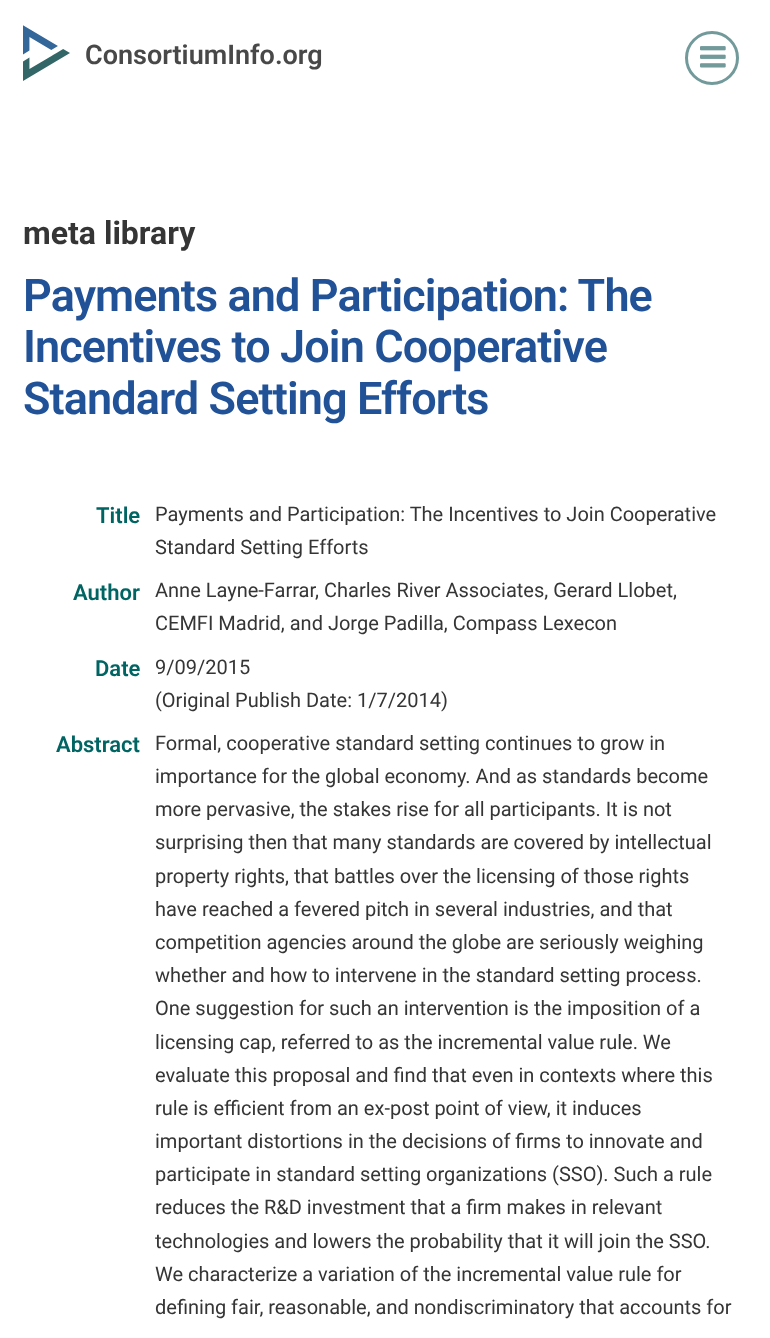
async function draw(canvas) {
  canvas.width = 770
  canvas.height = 1338
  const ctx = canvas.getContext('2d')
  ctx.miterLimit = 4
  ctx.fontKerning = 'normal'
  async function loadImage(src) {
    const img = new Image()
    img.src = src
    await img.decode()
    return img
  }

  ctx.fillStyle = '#fff'
  ctx.fillRect(0, 0, 770, 1338)
  ctx.drawImage(await loadImage('image0.png'), 23, 25, 47, 56)
  ctx.font = '600 27px Roboto'
  ctx.fillStyle = '#484848'
  ctx.fillText('ConsortiumInfo.org', 85, 64)
  ctx.beginPath()
  ctx.arc(712, 58, 25.5, 0, 2 * Math.PI)
  ctx.strokeStyle = '#739a9b'
  ctx.lineWidth = 3
  ctx.stroke()
  ctx.drawImage(await loadImage('image1.png'), 700, 46, 26, 22)
  ctx.font = 'bold 32px Roboto'
  ctx.fillStyle = '#343534'
  ctx.fillText('meta library', 23, 244)
  ctx.letterSpacing = '-0.9px'
  ctx.font = '600 45px Roboto'
  ctx.fillStyle = '#215298'
  ctx.fillText('Payments and Participation: The', 23, 311)
  ctx.fillText('Incentives to Join Cooperative', 23, 362)
  ctx.fillText('Standard Setting Efforts', 23, 414)
  ctx.letterSpacing = '0px'
  ctx.font = '600 22px Roboto'
  ctx.fillStyle = '#006463'
  ctx.fillText('Title', 96, 523)
  ctx.font = '20px Roboto'
  ctx.fillStyle = '#343534'
  ctx.fillText('Payments and Participation: The Incentives to Join Cooperative', 155, 521)
  ctx.fillText('Standard Setting Efforts', 155, 554)
  ctx.font = '600 22px Roboto'
  ctx.fillStyle = '#006463'
  ctx.fillText('Author', 73, 600)
  ctx.font = '20px Roboto'
  ctx.fillStyle = '#343534'
  ctx.fillText('Anne Layne-Farrar, Charles River Associates, Gerard Llobet,', 155, 597)
  ctx.fillText('CEMFI Madrid, and Jorge Padilla, Compass Lexecon', 155, 630)
  ctx.font = '600 22px Roboto'
  ctx.fillStyle = '#006463'
  ctx.fillText('Date', 95, 676)
  ctx.font = '20px Roboto'
  ctx.fillStyle = '#343534'
  ctx.fillText('9/09/2015', 155, 674)
  ctx.fillText('(Original Publish Date: 1/7/2014)', 155, 707)
  ctx.font = '600 22px Roboto'
  ctx.fillStyle = '#006463'
  ctx.fillText('Abstract', 56, 752)
  ctx.font = '20px Roboto'
  ctx.fillStyle = '#343534'
  ctx.fillText('Formal, cooperative standard setting continues to grow in', 155, 750)
  ctx.fillText('importance for the global economy. And as standards become', 155, 783)
  ctx.fillText('more pervasive, the stakes rise for all participants. It is not', 155, 816)
  ctx.fillText('surprising then that many standards are covered by intellectual', 155, 849)
  ctx.fillText('property rights, that battles over the licensing of those rights', 155, 883)
  ctx.fillText('have reached a fevered pitch in several industries, and that', 155, 916)
  ctx.fillText('competition agencies around the globe are seriously weighing', 155, 949)
  ctx.fillText('whether and how to intervene in the standard setting process.', 155, 982)
  ctx.fillText('One suggestion for such an intervention is the imposition of a', 155, 1015)
  ctx.fillText('licensing cap, referred to as the incremental value rule. We', 155, 1049)
  ctx.fillText('evaluate this proposal and find that even in contexts where this', 155, 1082)
  ctx.fillText('rule is efficient from an ex-post point of view, it induces', 155, 1115)
  ctx.fillText('important distortions in the decisions of firms to innovate and', 155, 1148)
  ctx.fillText('participate in standard setting organizations (SSO). Such a rule', 155, 1181)
  ctx.fillText('reduces the R&D investment that a firm makes in relevant', 155, 1214)
  ctx.fillText('technologies and lowers the probability that it will join the SSO.', 155, 1248)
  ctx.fillText('We characterize a variation of the incremental value rule for', 155, 1281)
  ctx.fillText('defining fair, reasonable, and nondiscriminatory that accounts for', 155, 1314)
}

draw(document.querySelector('canvas'))
